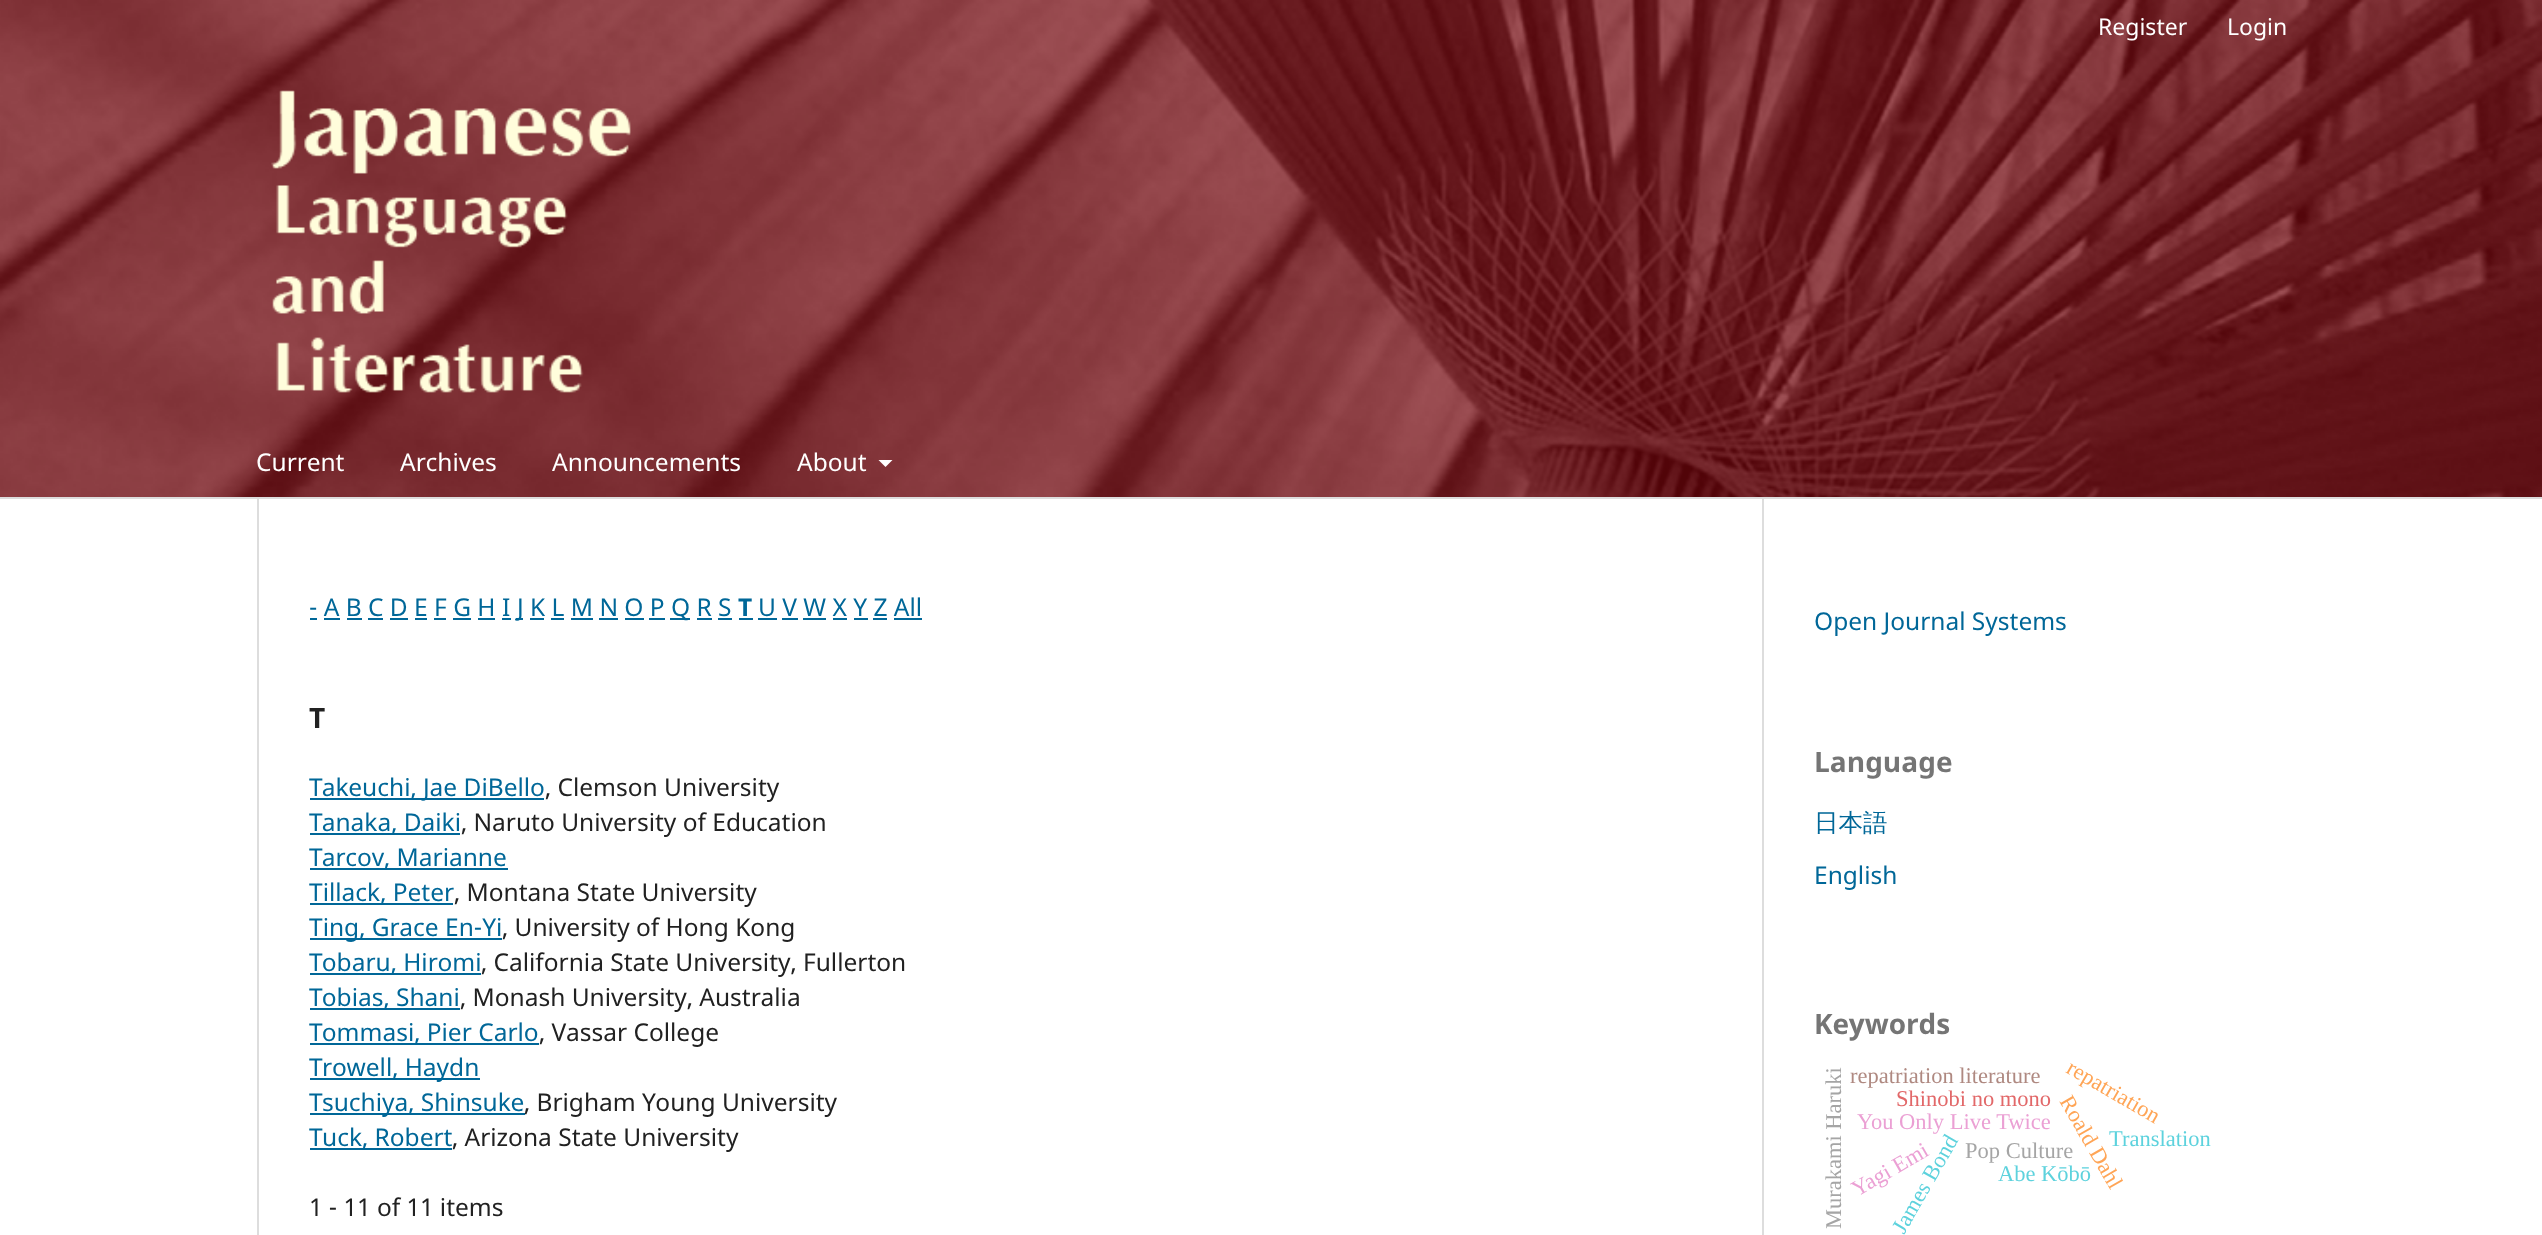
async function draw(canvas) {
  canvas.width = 2542
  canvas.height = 1235
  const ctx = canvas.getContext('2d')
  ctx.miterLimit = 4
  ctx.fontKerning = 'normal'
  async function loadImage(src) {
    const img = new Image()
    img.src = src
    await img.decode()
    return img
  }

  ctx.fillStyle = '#fff'
  ctx.fillRect(0, 0, 2542, 1235)
  ctx.drawImage(await loadImage('image0.png'), 0, 0, 2542, 497)
  ctx.fillStyle = '#ddd'
  ctx.fillRect(0, 497, 2542, 2)
  ctx.font = '23px Noto Sans'
  ctx.fillStyle = '#fff'
  ctx.fillText('Register', 2098, 35)
  ctx.fillText('Login', 2227, 35)
  ctx.font = '24.5px Noto Sans'
  ctx.fillText('Current', 256, 471)
  ctx.fillText('Archives', 400, 471)
  ctx.fillText('Announcements', 552, 471)
  ctx.fillText('About', 797, 471)
  ctx.beginPath()
  ctx.moveTo(878.5, 460)
  ctx.lineTo(892.5, 460)
  ctx.lineTo(885.5, 467)
  ctx.closePath()
  ctx.fill()
  ctx.drawImage(await loadImage('image1.png'), 271, 90, 360, 303)
  ctx.fillStyle = '#ddd'
  ctx.fillRect(257, 499, 2, 736)
  ctx.fillStyle = '#006798'
  ctx.fillText('- A B C D E F G H I', 309, 616)
  ctx.fillRect(310, 618, 7, 2)
  ctx.fillRect(516, 618, 7, 2)
  ctx.fillText('J K L M N O P', 517, 616)
  ctx.fillRect(670, 618, 20, 2)
  ctx.fillText('Q R S', 671, 616)
  ctx.font = 'bold 24.5px Noto Sans'
  ctx.fillText('T', 738, 616)
  ctx.fillRect(739, 618, 14, 2)
  ctx.font = '24.5px Noto Sans'
  ctx.fillText('U V W X Y Z All', 758, 616)
  ctx.fillRect(758, 618, 19, 2)
  ctx.fillRect(324, 618, 16, 2)
  ctx.fillRect(347, 618, 15, 2)
  ctx.fillRect(368, 618, 15, 2)
  ctx.fillRect(390, 618, 18, 2)
  ctx.fillRect(415, 618, 12, 2)
  ctx.fillRect(434, 618, 12, 2)
  ctx.fillRect(453, 618, 18, 2)
  ctx.fillRect(478, 618, 17, 2)
  ctx.fillRect(502, 618, 9, 2)
  ctx.fillRect(530, 618, 14, 2)
  ctx.fillRect(551, 618, 13, 2)
  ctx.fillRect(571, 618, 22, 2)
  ctx.fillRect(599, 618, 19, 2)
  ctx.fillRect(625, 618, 19, 2)
  ctx.fillRect(649, 618, 16, 2)
  ctx.fillRect(697, 618, 15, 2)
  ctx.fillRect(718, 618, 14, 2)
  ctx.fillRect(782, 618, 16, 2)
  ctx.fillRect(803, 618, 23, 2)
  ctx.fillRect(833, 618, 14, 2)
  ctx.fillRect(854, 618, 14, 2)
  ctx.fillRect(873, 618, 14, 2)
  ctx.fillRect(894, 618, 28, 2)
  ctx.fillStyle = '#ddd'
  ctx.fillRect(1762, 499, 2, 736)
  ctx.font = 'bold 28px Noto Sans'
  ctx.fillStyle = '#212121'
  ctx.fillText('T', 309, 728)
  ctx.fillStyle = '#006798'
  ctx.fillRect(310, 798, 234, 2)
  ctx.font = '24.5px Noto Sans'
  ctx.fillText('Takeuchi, Jae DiBello', 309, 796)
  ctx.fillStyle = '#212121'
  ctx.fillText(', Clemson University', 545, 796)
  ctx.fillStyle = '#006798'
  ctx.fillRect(310, 833, 150, 2)
  ctx.fillText('Tanaka, Daiki', 309, 831)
  ctx.fillStyle = '#212121'
  ctx.fillText(', Naruto University of Education', 461, 831)
  ctx.fillStyle = '#006798'
  ctx.fillRect(310, 868, 198, 2)
  ctx.fillText('Tarcov, Marianne', 309, 866)
  ctx.fillRect(310, 903, 143, 2)
  ctx.fillText('Tillack, Peter', 309, 901)
  ctx.fillStyle = '#212121'
  ctx.fillText(', Montana State University', 454, 901)
  ctx.fillStyle = '#006798'
  ctx.fillRect(310, 938, 192, 2)
  ctx.fillText('Ting, Grace En-Yi', 309, 936)
  ctx.fillStyle = '#212121'
  ctx.fillText(', University of Hong Kong', 502, 936)
  ctx.fillStyle = '#006798'
  ctx.fillRect(310, 973, 171, 2)
  ctx.fillText('Tobaru, Hiromi', 309, 971)
  ctx.fillStyle = '#212121'
  ctx.fillText(', California State University, Fullerton', 481, 971)
  ctx.fillStyle = '#006798'
  ctx.fillRect(310, 1008, 150, 2)
  ctx.fillText('Tobias, Shani', 309, 1006)
  ctx.fillStyle = '#212121'
  ctx.fillText(', Monash University, Australia', 460, 1006)
  ctx.fillStyle = '#006798'
  ctx.fillRect(310, 1043, 229, 2)
  ctx.fillText('Tommasi, Pier Carlo', 309, 1041)
  ctx.fillStyle = '#212121'
  ctx.fillText(', Vassar College', 539, 1041)
  ctx.fillStyle = '#006798'
  ctx.fillRect(310, 1078, 170, 2)
  ctx.fillText('Trowell, Haydn', 309, 1076)
  ctx.fillRect(310, 1113, 215, 2)
  ctx.fillText('Tsuchiya, Shinsuke', 309, 1111)
  ctx.fillStyle = '#212121'
  ctx.fillText(', Brigham Young University', 524, 1111)
  ctx.fillStyle = '#006798'
  ctx.fillRect(310, 1148, 142, 2)
  ctx.fillText('Tuck, Robert', 309, 1146)
  ctx.fillStyle = '#212121'
  ctx.fillText(', Arizona State University', 452, 1146)
  ctx.fillText('1 - 11 of 11 items', 309, 1216)
  ctx.fillStyle = '#006798'
  ctx.fillText('Open Journal Systems', 1814, 630)
  ctx.font = 'bold 28px Noto Sans'
  ctx.fillStyle = '#757575'
  ctx.fillText('Language', 1814, 772)
  ctx.font = '500 24.5px WenQuanYi Zen Hei'
  ctx.fillStyle = '#006798'
  ctx.fillText('日本語', 1814, 831)
  ctx.font = '24.5px Noto Sans'
  ctx.fillText('English', 1814, 884)
  ctx.font = 'bold 28px Noto Sans'
  ctx.fillStyle = '#757575'
  ctx.fillText('Keywords', 1814, 1034)
  ctx.font = '22.5px Liberation Serif'
  ctx.fillStyle = '#a5a5a5'
  ctx.save()
  ctx.translate(1841, 1229)
  ctx.rotate(-90 * Math.PI / 180)
  ctx.fillText('Murakami Haruki', 0, 0)
  ctx.restore()
  ctx.fillStyle = '#af8981'
  ctx.fillText('repatriation literature', 1850, 1083)
  ctx.fillStyle = '#5dd2dd'
  ctx.fillText('Abe Kōbō', 1998, 1181)
  ctx.fillStyle = '#ffa556'
  ctx.save()
  ctx.translate(2059, 1101)
  ctx.rotate(60 * Math.PI / 180)
  ctx.fillText('Roald Dahl', 0, 0)
  ctx.restore()
  ctx.save()
  ctx.translate(2065, 1072)
  ctx.rotate(30 * Math.PI / 180)
  ctx.fillText('repatriation', 0, 0)
  ctx.restore()
  ctx.fillStyle = '#e26869'
  ctx.fillText('Shinobi no mono', 1896, 1106)
  ctx.fillStyle = '#eba0d4'
  ctx.fillText('You Only Live Twice', 1857, 1129)
  ctx.fillStyle = '#5dd2dd'
  ctx.save()
  ctx.translate(1904, 1235)
  ctx.rotate(-60 * Math.PI / 180)
  ctx.fillText('James Bond', 0, 0)
  ctx.restore()
  ctx.fillStyle = '#a5a5a5'
  ctx.fillText('Pop Culture', 1965, 1158)
  ctx.fillStyle = '#5dd2dd'
  ctx.fillText('Translation', 2109, 1146)
  ctx.fillStyle = '#eba0d4'
  ctx.save()
  ctx.translate(1857, 1197)
  ctx.rotate(-30 * Math.PI / 180)
  ctx.fillText('Yagi Emi', 0, 0)
  ctx.restore()
}

draw(document.querySelector('canvas'))
